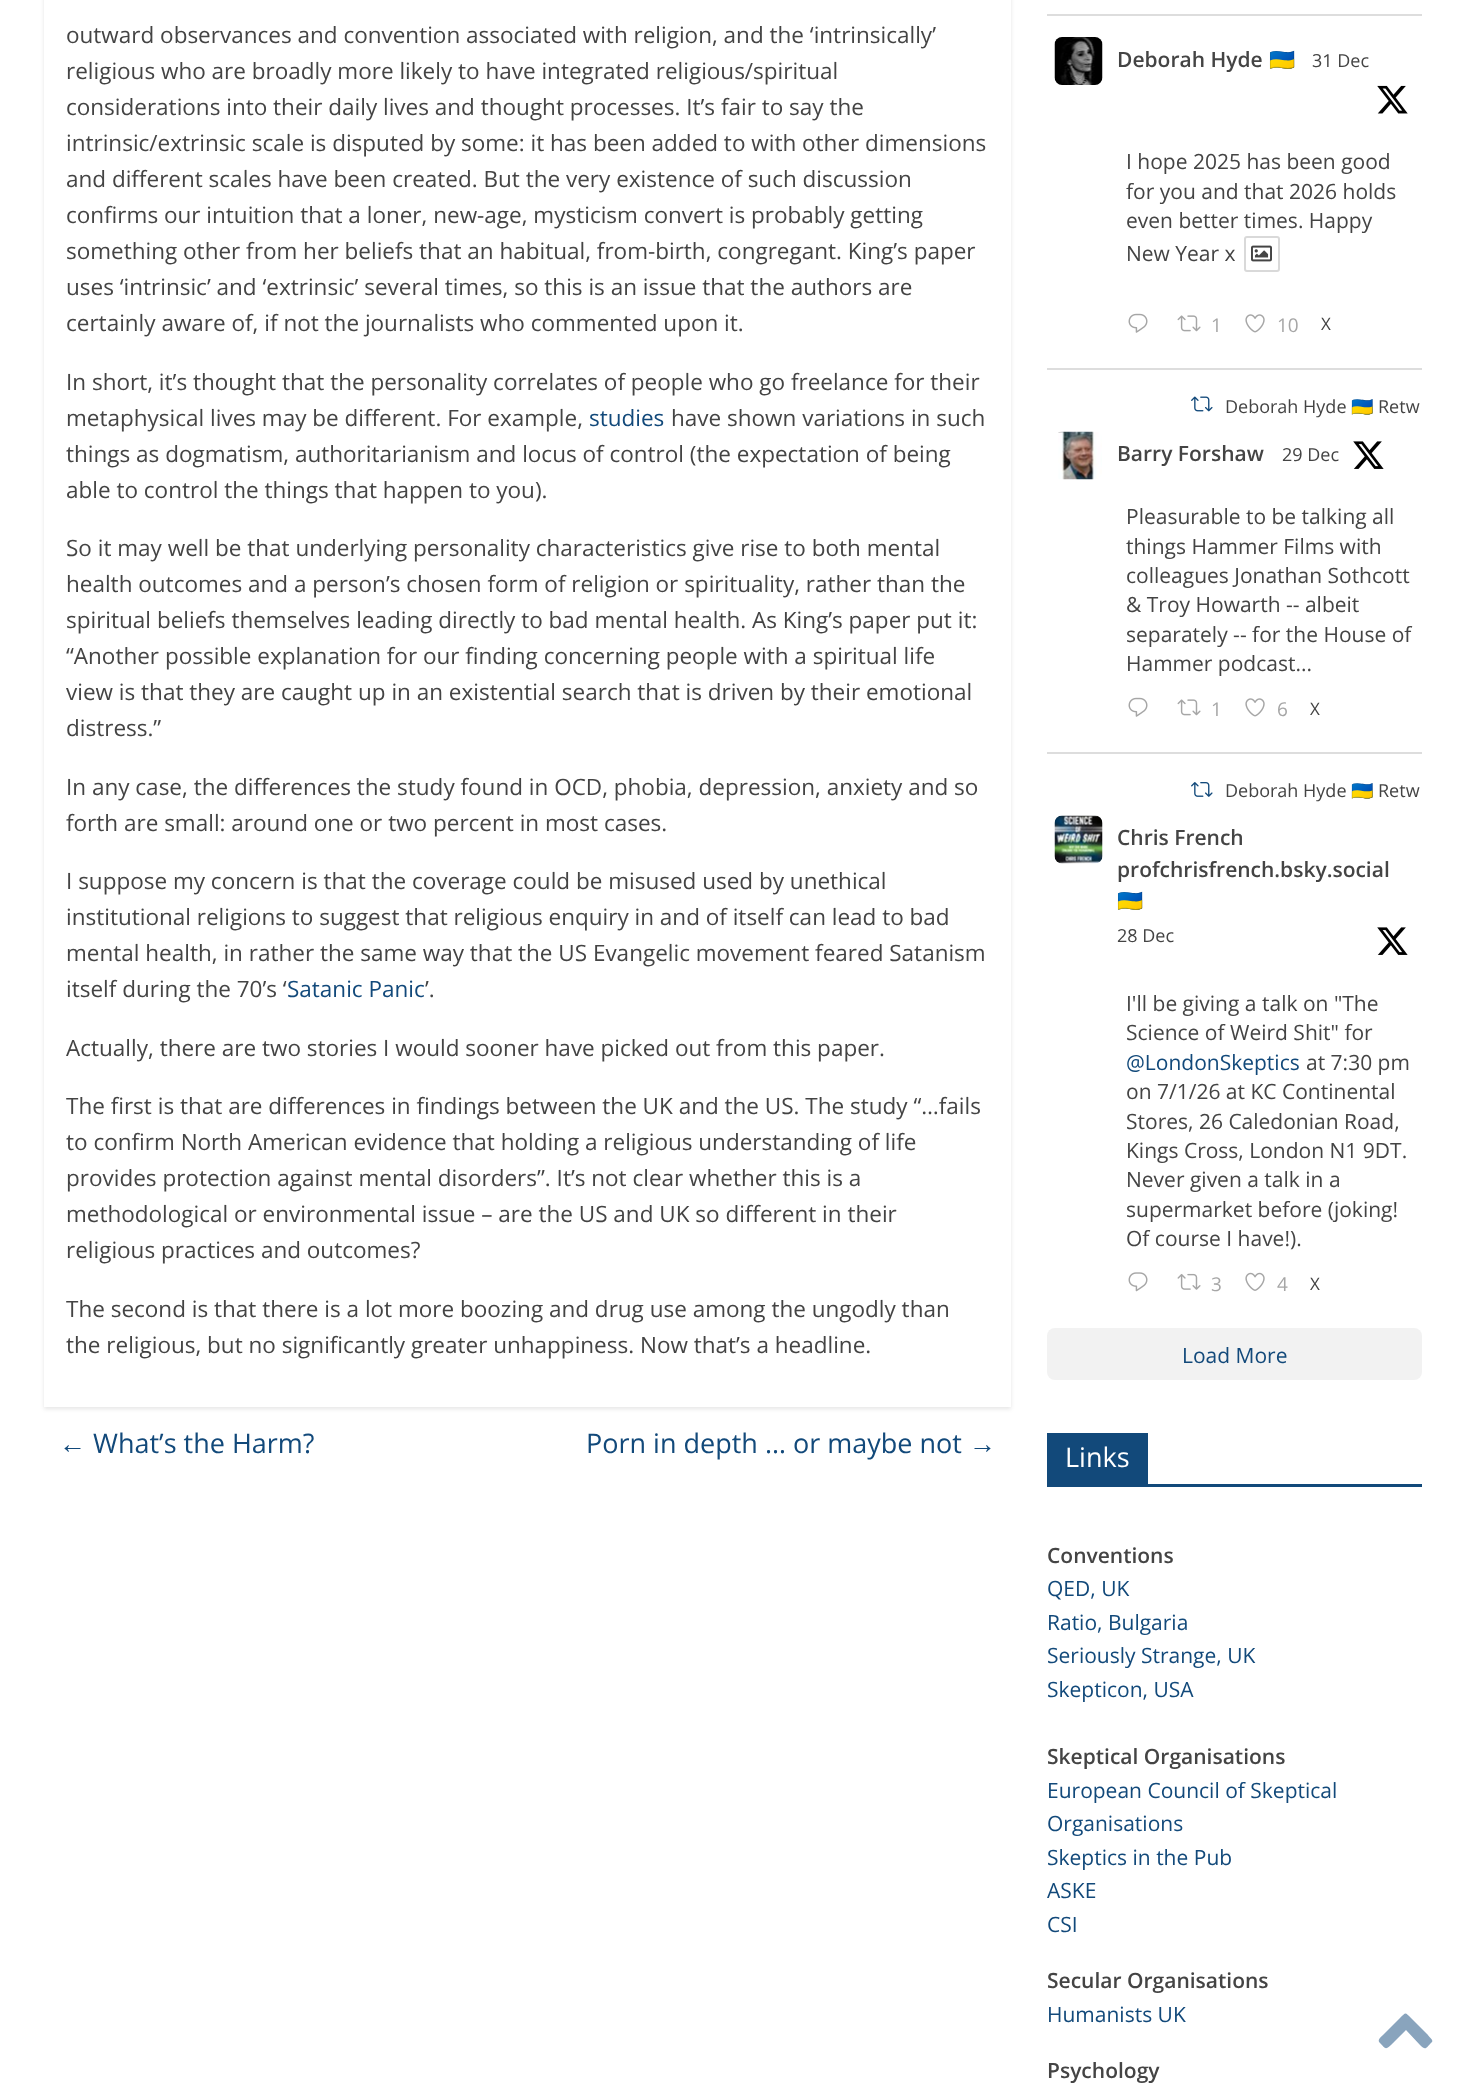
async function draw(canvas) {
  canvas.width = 1465
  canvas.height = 2091
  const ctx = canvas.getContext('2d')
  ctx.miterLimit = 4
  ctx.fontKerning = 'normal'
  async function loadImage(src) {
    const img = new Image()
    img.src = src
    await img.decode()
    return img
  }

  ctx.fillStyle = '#fff'
  ctx.fillRect(0, 0, 1465, 2091)
  ctx.save()
  ctx.beginPath()
  ctx.moveTo(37, 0)
  ctx.lineTo(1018, 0)
  ctx.lineTo(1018, 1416)
  ctx.lineTo(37, 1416)
  ctx.closePath()
  ctx.moveTo(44, -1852)
  ctx.lineTo(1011, -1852)
  ctx.lineTo(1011, 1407)
  ctx.lineTo(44, 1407)
  ctx.closePath()
  ctx.clip('evenodd')
  ctx.fillStyle = '#0000001a'
  ctx.filter = 'blur(2px)'
  ctx.beginPath()
  ctx.rect(44, -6, 967, 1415)
  ctx.fill()
  ctx.filter = 'none'
  ctx.restore()
  ctx.font = '22.5px Open Sans'
  ctx.fillStyle = '#444'
  ctx.fillText('outward observances and convention associated with religion, and the ‘intrinsically’', 66, 43)
  ctx.fillText('religious who are broadly more likely to have integrated religious/spiritual', 66, 79)
  ctx.fillText('considerations into their daily lives and thought processes. It’s fair to say the', 66, 115)
  ctx.fillText('intrinsic/extrinsic scale is disputed by some: it has been added to with other dimensions', 66, 151)
  ctx.fillText('and different scales have been created. But the very existence of such discussion', 66, 187)
  ctx.fillText('confirms our intuition that a loner, new-age, mysticism convert is probably getting', 66, 223)
  ctx.fillText('something other from her beliefs that an habitual, from-birth, congregant. King’s paper', 66, 259)
  ctx.fillText('uses ‘intrinsic’ and ‘extrinsic’ several times, so this is an issue that the authors are', 66, 295)
  ctx.fillText('certainly aware of, if not the journalists who commented upon it.', 66, 331)
  ctx.fillText('In short, it’s thought that the personality correlates of people who go freelance for their', 66, 390)
  ctx.fillText('metaphysical lives may be different. For example,', 66, 426)
  ctx.fillStyle = '#12497a'
  ctx.fillText('studies', 589, 426)
  ctx.fillStyle = '#444'
  ctx.fillText('have shown variations in such', 671, 426)
  ctx.fillText('things as dogmatism, authoritarianism and locus of control (the expectation of being', 66, 462)
  ctx.fillText('able to control the things that happen to you).', 66, 498)
  ctx.fillText('So it may well be that underlying personality characteristics give rise to both mental', 66, 556)
  ctx.fillText('health outcomes and a person’s chosen form of religion or spirituality, rather than the', 66, 592)
  ctx.fillText('spiritual beliefs themselves leading directly to bad mental health. As King’s paper put it:', 66, 628)
  ctx.fillText('“Another possible explanation for our finding concerning people with a spiritual life', 66, 664)
  ctx.fillText('view is that they are caught up in an existential search that is driven by their emotional', 66, 700)
  ctx.fillText('distress.”', 66, 736)
  ctx.fillText('In any case, the differences the study found in OCD, phobia, depression, anxiety and so', 66, 795)
  ctx.fillText('forth are small: around one or two percent in most cases.', 66, 831)
  ctx.fillText('I suppose my concern is that the coverage could be misused used by unethical', 66, 889)
  ctx.fillText('institutional religions to suggest that religious enquiry in and of itself can lead to bad', 66, 925)
  ctx.fillText('mental health, in rather the same way that the US Evangelic movement feared Satanism', 66, 961)
  ctx.fillText('itself during the 70’s ‘', 66, 997)
  ctx.fillStyle = '#12497a'
  ctx.fillText('Satanic Panic', 287, 997)
  ctx.fillStyle = '#444'
  ctx.fillText('’.', 425, 997)
  ctx.fillText('Actually, there are two stories I would sooner have picked out from this paper.', 66, 1056)
  ctx.fillText('The first is that are differences in findings between the UK and the US. The study “…fails', 66, 1114)
  ctx.fillText('to confirm North American evidence that holding a religious understanding of life', 66, 1150)
  ctx.fillText('provides protection against mental disorders”. It’s not clear whether this is a', 66, 1186)
  ctx.fillText('methodological or environmental issue – are the US and UK so different in their', 66, 1222)
  ctx.fillText('religious practices and outcomes?', 66, 1258)
  ctx.fillText('The second is that there is a lot more boozing and drug use among the ungodly than', 66, 1317)
  ctx.fillText('the religious, but no significantly greater unhappiness. Now that’s a headline.', 66, 1353)
  ctx.font = '27px Liberation Serif'
  ctx.fillStyle = '#12497a'
  ctx.fillText('←', 59, 1453)
  ctx.font = '27px Open Sans'
  ctx.fillText('What’s the Harm?', 93, 1453)
  ctx.fillText('Porn in depth … or maybe not', 586, 1453)
  ctx.font = '27px Liberation Serif'
  ctx.fillText('→', 969, 1453)
  ctx.fillStyle = '#ddd'
  ctx.fillRect(1047, 14, 375, 2)
  ctx.fillRect(1047, 368, 375, 2)
  ctx.drawImage(await loadImage('image0.png'), 1054, 37, 49, 48)
  ctx.font = '600 21px Open Sans'
  ctx.fillStyle = '#444'
  ctx.fillText('Deborah Hyde', 1117, 67)
  ctx.font = 'bold 21px Noto Color Emoji'
  ctx.fillText('🇺🇦', 1269, 67)
  ctx.font = '18px Open Sans'
  ctx.fillText('31 Dec', 1312, 67)
  ctx.drawImage(await loadImage('image1.png'), 1377, 85, 31, 29)
  ctx.font = '21px Open Sans'
  ctx.fillText('I hope 2025 has been good', 1126, 169)
  ctx.fillText('for you and that 2026 holds', 1126, 199)
  ctx.fillText('even better times. Happy', 1126, 228)
  ctx.fillText('New Year x', 1126, 261)
  ctx.beginPath()
  ctx.roundRect(1245, 237, 34, 34, 2)
  ctx.strokeStyle = '#d9d9d9'
  ctx.lineWidth = 2
  ctx.stroke()
  ctx.drawImage(await loadImage('image2.png'), 1251, 245, 21, 17)
  ctx.drawImage(await loadImage('image3.png'), 1128, 313, 20, 20)
  ctx.drawImage(await loadImage('image4.png'), 1177, 315, 24, 17)
  ctx.font = '19px Open Sans'
  ctx.fillStyle = '#a6a6a6'
  ctx.fillText('1', 1211, 332)
  ctx.drawImage(await loadImage('image5.png'), 1245, 314, 20, 19)
  ctx.fillText('10', 1277, 332)
  ctx.font = '17px Open Sans'
  ctx.fillStyle = '#444'
  ctx.fillText('X', 1321, 330)
  ctx.fillStyle = '#ddd'
  ctx.fillRect(1047, 752, 375, 2)
  ctx.drawImage(await loadImage('image6.png'), 1191, 396, 22, 16)
  ctx.font = '18px Open Sans'
  ctx.fillStyle = '#444'
  ctx.fillText('Deborah Hyde', 1225, 413)
  ctx.font = '18px Noto Color Emoji'
  ctx.fillText('🇺🇦', 1351, 413)
  ctx.font = '18px Open Sans'
  ctx.fillText('Retw', 1378, 413)
  ctx.drawImage(await loadImage('image7.png'), 1058, 431, 44, 49)
  ctx.font = '600 21px Open Sans'
  ctx.fillText('Barry Forshaw', 1117, 461)
  ctx.font = '18px Open Sans'
  ctx.fillText('29 Dec', 1282, 461)
  ctx.drawImage(await loadImage('image8.png'), 1353, 441, 31, 28)
  ctx.font = '21px Open Sans'
  ctx.fillText('Pleasurable to be talking all', 1126, 524)
  ctx.fillText('things Hammer Films with', 1126, 554)
  ctx.fillText('colleagues Jonathan Sothcott', 1126, 583)
  ctx.fillText('& Troy Howarth -- albeit', 1126, 612)
  ctx.fillText('separately -- for the House of', 1126, 642)
  ctx.fillText('Hammer podcast...', 1126, 671)
  ctx.drawImage(await loadImage('image3.png'), 1128, 697, 20, 20)
  ctx.drawImage(await loadImage('image4.png'), 1177, 699, 24, 17)
  ctx.font = '19px Open Sans'
  ctx.fillStyle = '#a6a6a6'
  ctx.fillText('1', 1211, 716)
  ctx.drawImage(await loadImage('image5.png'), 1245, 698, 20, 19)
  ctx.fillText('6', 1277, 716)
  ctx.font = '17px Open Sans'
  ctx.fillStyle = '#444'
  ctx.fillText('X', 1310, 715)
  ctx.drawImage(await loadImage('image9.png'), 1191, 782, 22, 15)
  ctx.font = '18px Open Sans'
  ctx.fillText('Deborah Hyde', 1225, 797)
  ctx.font = '18px Noto Color Emoji'
  ctx.fillText('🇺🇦', 1351, 797)
  ctx.font = '18px Open Sans'
  ctx.fillText('Retw', 1378, 797)
  ctx.drawImage(await loadImage('image10.png'), 1054, 815, 49, 49)
  ctx.font = '600 21px Open Sans'
  ctx.fillText('Chris French', 1117, 845)
  ctx.fillText('profchrisfrench.bsky.social', 1117, 877)
  ctx.font = 'bold 21px Noto Color Emoji'
  ctx.fillText('🇺🇦', 1117, 908)
  ctx.font = '18px Open Sans'
  ctx.fillText('28 Dec', 1117, 942)
  ctx.drawImage(await loadImage('image8.png'), 1377, 927, 31, 28)
  ctx.font = '21px Open Sans'
  ctx.fillText('I\'ll be giving a talk on "The', 1126, 1011)
  ctx.fillText('Science of Weird Shit" for', 1126, 1040)
  ctx.fillStyle = '#12497a'
  ctx.fillText('@LondonSkeptics', 1126, 1070)
  ctx.fillStyle = '#444'
  ctx.fillText('at 7:30 pm', 1306, 1070)
  ctx.fillText('on 7/1/26 at KC Continental', 1126, 1099)
  ctx.fillText('Stores, 26 Caledonian Road,', 1126, 1129)
  ctx.fillText('Kings Cross, London N1 9DT.', 1126, 1158)
  ctx.fillText('Never given a talk in a', 1126, 1187)
  ctx.fillText('supermarket before (joking!', 1126, 1217)
  ctx.fillText('Of course I have!).', 1126, 1246)
  ctx.drawImage(await loadImage('image11.png'), 1128, 1272, 20, 20)
  ctx.drawImage(await loadImage('image12.png'), 1177, 1273, 24, 17)
  ctx.font = '19px Open Sans'
  ctx.fillStyle = '#a6a6a6'
  ctx.fillText('3', 1211, 1291)
  ctx.drawImage(await loadImage('image13.png'), 1245, 1272, 20, 19)
  ctx.fillText('4', 1277, 1291)
  ctx.font = '17px Open Sans'
  ctx.fillStyle = '#444'
  ctx.fillText('X', 1310, 1290)
  ctx.fillStyle = '#f2f2f2'
  ctx.beginPath()
  ctx.roundRect(1047, 1328, 375, 52, 8)
  ctx.fill()
  ctx.font = '21px Open Sans'
  ctx.fillStyle = '#12497a'
  ctx.fillText('Load More', 1182, 1363)
  ctx.fillRect(1047, 1484, 375, 3)
  ctx.fillRect(1047, 1433, 101, 51)
  ctx.font = '27px Open Sans'
  ctx.fillStyle = '#fff'
  ctx.fillText('Links', 1065, 1467)
  ctx.font = '600 21px Open Sans'
  ctx.fillStyle = '#444'
  ctx.fillText('Conventions', 1047, 1563)
  ctx.font = '21px Open Sans'
  ctx.fillStyle = '#12497a'
  ctx.fillText('QED, UK', 1047, 1596)
  ctx.fillText('Ratio, Bulgaria', 1047, 1630)
  ctx.fillText('Seriously Strange, UK', 1047, 1663)
  ctx.fillText('Skepticon, USA', 1047, 1697)
  ctx.font = '600 21px Open Sans'
  ctx.fillStyle = '#444'
  ctx.fillText('Skeptical Organisations', 1047, 1764)
  ctx.font = '21px Open Sans'
  ctx.fillStyle = '#12497a'
  ctx.fillText('European Council of Skeptical', 1047, 1798)
  ctx.fillText('Organisations', 1047, 1831)
  ctx.fillText('Skeptics in the Pub', 1047, 1865)
  ctx.fillText('ASKE', 1047, 1898)
  ctx.fillText('CSI', 1047, 1932)
  ctx.font = '600 21px Open Sans'
  ctx.fillStyle = '#444'
  ctx.fillText('Secular Organisations', 1047, 1988)
  ctx.font = '21px Open Sans'
  ctx.fillStyle = '#12497a'
  ctx.fillText('Humanists UK', 1047, 2022)
  ctx.font = '600 21px Open Sans'
  ctx.fillStyle = '#444'
  ctx.fillText('Psychology', 1047, 2078)
  ctx.fillStyle = '#89a4bd'
  ctx.beginPath()
  ctx.moveTo(1432, 2042)
  ctx.bezierCurveTo(1426, 2048, 1426, 2051, 1420, 2045)
  ctx.lineTo(1406, 2030)
  ctx.lineTo(1391, 2045)
  ctx.bezierCurveTo(1385, 2050, 1386, 2049, 1380, 2043)
  ctx.bezierCurveTo(1377, 2040, 1380, 2038, 1383, 2035)
  ctx.lineTo(1400, 2018)
  ctx.bezierCurveTo(1406, 2012, 1405, 2012, 1411, 2018)
  ctx.lineTo(1428, 2035)
  ctx.bezierCurveTo(1428, 2036, 1434, 2040, 1432, 2042)
  ctx.closePath()
  ctx.fill()
}

draw(document.querySelector('canvas'))
